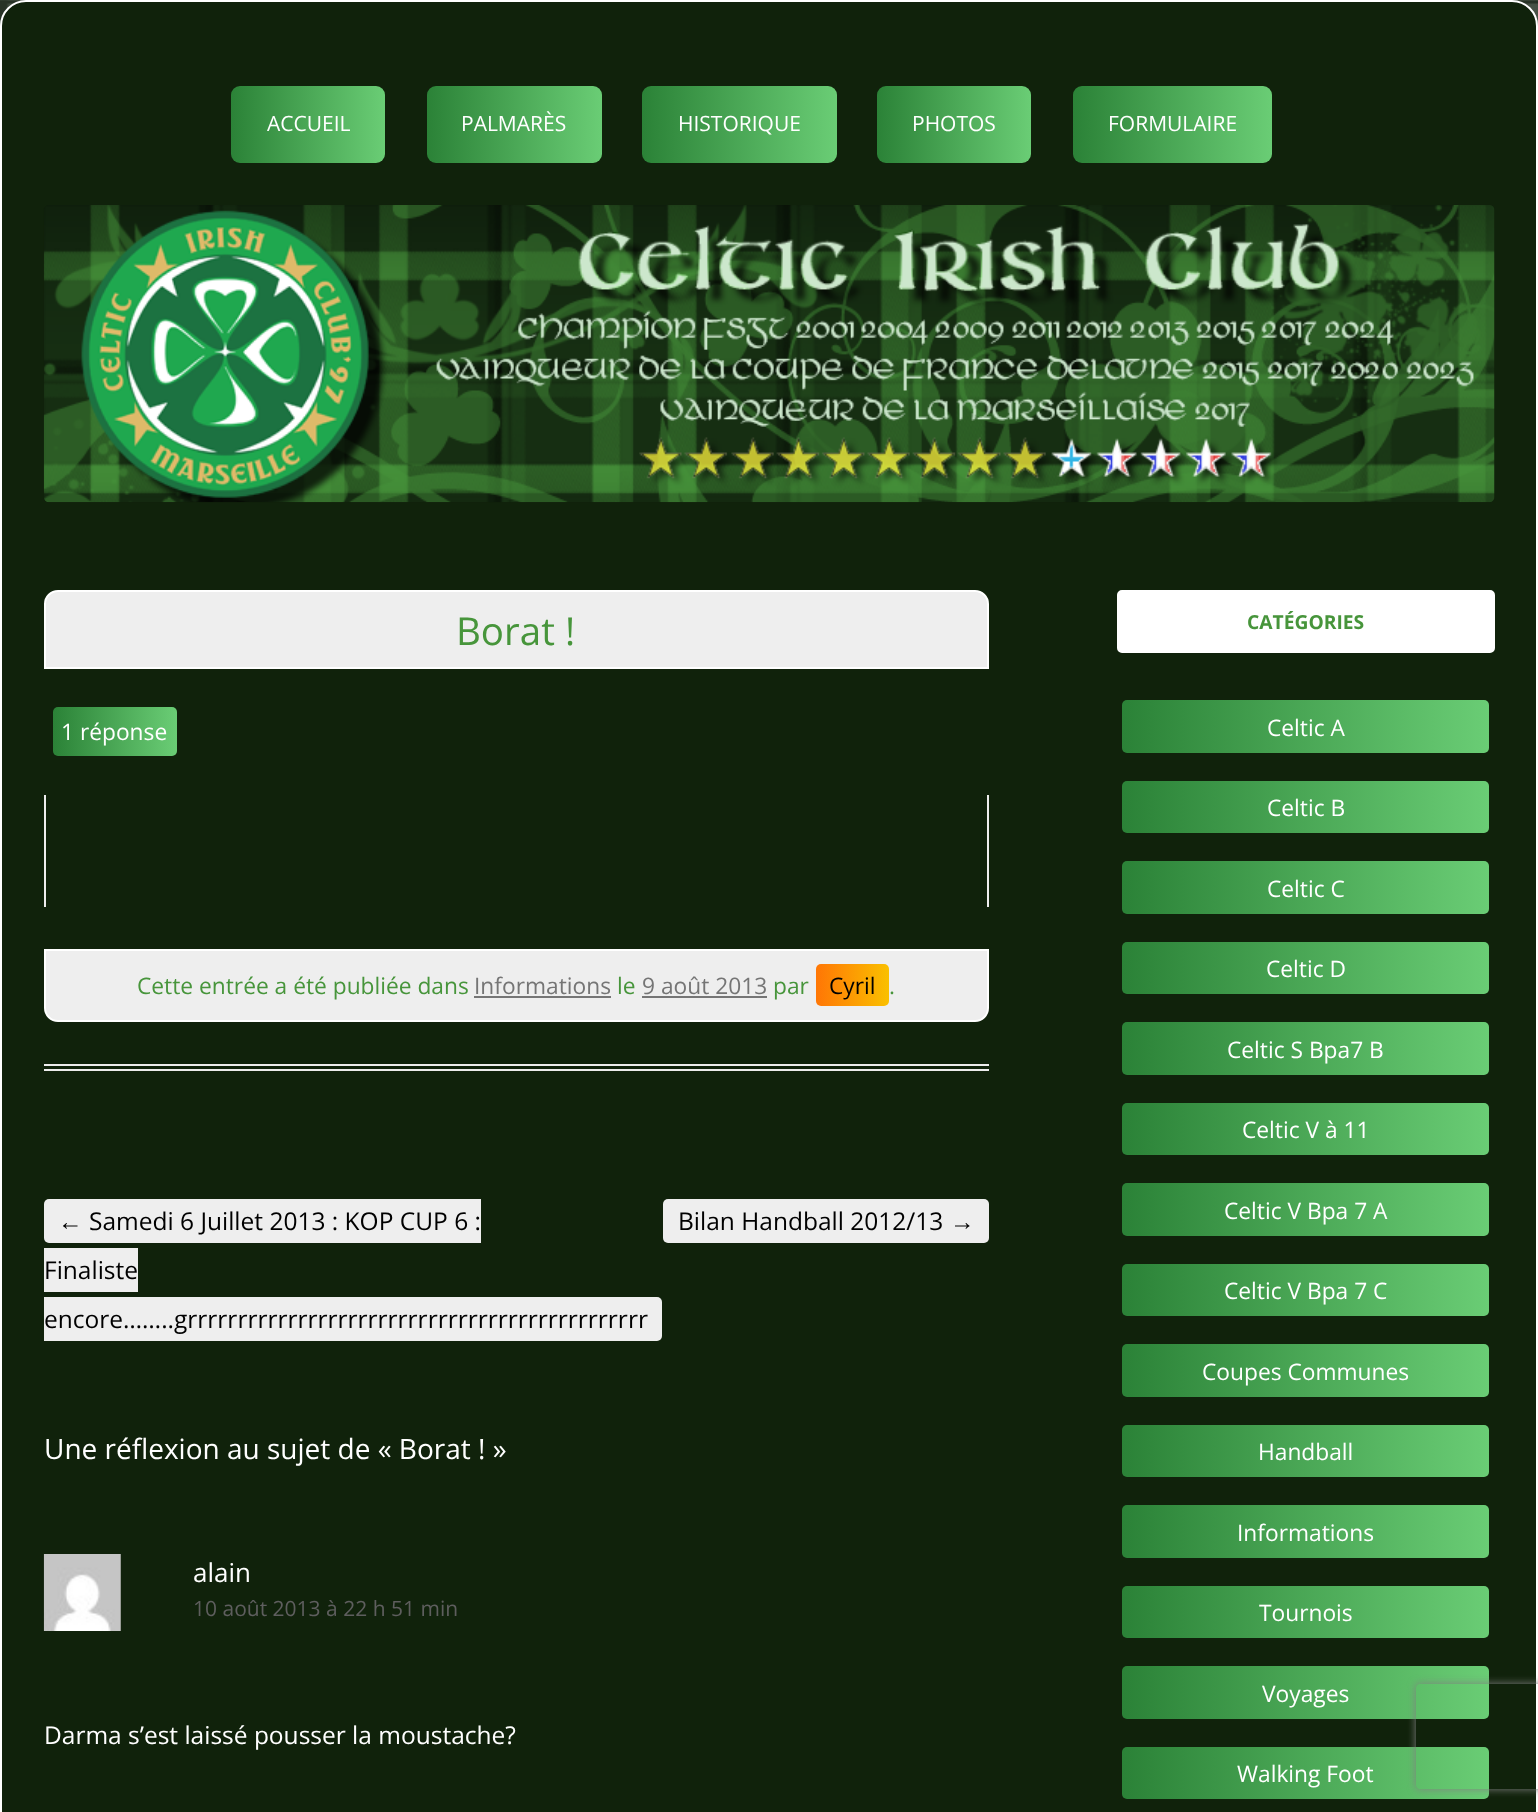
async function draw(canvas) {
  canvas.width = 1538
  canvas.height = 1812
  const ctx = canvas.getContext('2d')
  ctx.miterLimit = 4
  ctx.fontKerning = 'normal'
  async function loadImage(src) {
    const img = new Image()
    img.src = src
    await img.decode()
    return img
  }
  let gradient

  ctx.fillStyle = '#fff'
  ctx.fillRect(0, 0, 1538, 1812)
  ctx.drawImage(await loadImage('image0.png'), 0, 0, 1538, 26)
  ctx.fillStyle = '#10220b'
  ctx.beginPath()
  ctx.roundRect(1, 1, 1536, 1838, 25)
  ctx.fill()
  ctx.strokeStyle = '#fff'
  ctx.lineWidth = 2
  ctx.stroke()
  gradient = ctx.createLinearGradient(231, 124, 385, 124)
  gradient.addColorStop(0, '#2b8237')
  gradient.addColorStop(1, '#6acd75')
  ctx.fillStyle = gradient
  ctx.beginPath()
  ctx.roundRect(231, 86, 154, 77, 9)
  ctx.fill()
  ctx.font = '21px Open Sans'
  ctx.fillStyle = '#fff'
  ctx.fillText('ACCUEIL', 267, 131)
  gradient = ctx.createLinearGradient(427, 124, 602, 124)
  gradient.addColorStop(0, '#2b8237')
  gradient.addColorStop(1, '#6acd75')
  ctx.fillStyle = gradient
  ctx.beginPath()
  ctx.roundRect(427, 86, 175, 77, 9)
  ctx.fill()
  ctx.fillStyle = '#fff'
  ctx.fillText('PALMARÈS', 461, 131)
  gradient = ctx.createLinearGradient(642, 124, 837, 124)
  gradient.addColorStop(0, '#2b8237')
  gradient.addColorStop(1, '#6acd75')
  ctx.fillStyle = gradient
  ctx.beginPath()
  ctx.roundRect(642, 86, 195, 77, 9)
  ctx.fill()
  ctx.fillStyle = '#fff'
  ctx.fillText('HISTORIQUE', 678, 131)
  gradient = ctx.createLinearGradient(877, 124, 1031, 124)
  gradient.addColorStop(0, '#2b8237')
  gradient.addColorStop(1, '#6acd75')
  ctx.fillStyle = gradient
  ctx.beginPath()
  ctx.roundRect(877, 86, 154, 77, 9)
  ctx.fill()
  ctx.fillStyle = '#fff'
  ctx.fillText('PHOTOS', 912, 131)
  gradient = ctx.createLinearGradient(1073, 124, 1272, 124)
  gradient.addColorStop(0, '#2b8237')
  gradient.addColorStop(1, '#6acd75')
  ctx.fillStyle = gradient
  ctx.beginPath()
  ctx.roundRect(1073, 86, 199, 77, 9)
  ctx.fill()
  ctx.fillStyle = '#fff'
  ctx.fillText('FORMULAIRE', 1108, 131)
  ctx.drawImage(await loadImage('image1.png'), 43, 205, 1452, 298)
  ctx.fillStyle = '#ededed'
  ctx.fillRect(44, 1064, 945, 2)
  ctx.fillRect(44, 1069, 945, 2)
  ctx.fillStyle = '#eee'
  ctx.beginPath()
  ctx.roundRect(45, 591, 943, 77, [13, 13, 0, 0])
  ctx.fill()
  ctx.stroke()
  ctx.font = '38.5px Open Sans'
  ctx.fillStyle = '#47953b'
  ctx.fillText('Borat !', 456, 645)
  gradient = ctx.createLinearGradient(53, 732, 177, 732)
  gradient.addColorStop(0, '#2b8237')
  gradient.addColorStop(1, '#6acd75')
  ctx.fillStyle = gradient
  ctx.beginPath()
  ctx.roundRect(53, 707, 124, 49, 5)
  ctx.fill()
  ctx.font = '22.75px Open Sans'
  ctx.fillStyle = '#fff'
  ctx.fillText('1 réponse', 61, 740)
  ctx.fillStyle = '#eee'
  ctx.fillRect(987, 795, 2, 112)
  ctx.fillRect(44, 795, 2, 112)
  ctx.beginPath()
  ctx.roundRect(45, 950, 943, 71, [0, 0, 13, 13])
  ctx.fill()
  ctx.stroke()
  ctx.fillStyle = '#47953b'
  ctx.fillText('Cette entrée a été publiée dans', 137, 994)
  ctx.fillStyle = '#757575'
  ctx.fillText('Informations', 474, 994)
  ctx.fillRect(474, 996, 137, 2)
  ctx.fillStyle = '#47953b'
  ctx.fillText('le', 617, 994)
  ctx.fillStyle = '#757575'
  ctx.fillText('9 août 2013', 642, 994)
  ctx.fillRect(642, 996, 125, 2)
  ctx.fillStyle = '#47953b'
  ctx.fillText('par', 773, 994)
  gradient = ctx.createLinearGradient(816, 985, 889, 985)
  gradient.addColorStop(0, '#ff7605')
  gradient.addColorStop(1, '#fac000')
  ctx.fillStyle = gradient
  ctx.beginPath()
  ctx.roundRect(816, 964, 73, 42, 5)
  ctx.fill()
  ctx.fillStyle = '#000'
  ctx.fillText('Cyril', 829, 994)
  ctx.fillStyle = '#47953b'
  ctx.fillText('.', 889, 994)
  ctx.fillStyle = '#eee'
  ctx.beginPath()
  ctx.roundRect(44, 1199, 38, 44, [5, 0, 0, 5])
  ctx.fill()
  ctx.font = '24.5px Liberation Sans'
  ctx.fillStyle = '#000'
  ctx.fillText('←', 58, 1230)
  ctx.fillStyle = '#eee'
  ctx.fillRect(82, 1199, 399, 44)
  ctx.font = '24.5px Open Sans'
  ctx.fillStyle = '#000'
  ctx.fillText('Samedi 6 Juillet 2013 : KOP CUP 6 :', 89, 1230)
  ctx.fillStyle = '#eee'
  ctx.fillRect(44, 1248, 94, 44)
  ctx.fillStyle = '#000'
  ctx.fillText('Finaliste', 44, 1279)
  ctx.fillStyle = '#eee'
  ctx.beginPath()
  ctx.roundRect(44, 1297, 618, 44, [0, 5, 5, 0])
  ctx.fill()
  ctx.fillStyle = '#000'
  ctx.fillText('encore……..grrrrrrrrrrrrrrrrrrrrrrrrrrrrrrrrrrrrrrrrrrrrrr', 44, 1328)
  ctx.fillStyle = '#eee'
  ctx.beginPath()
  ctx.roundRect(663, 1199, 287, 44, [5, 0, 0, 5])
  ctx.fill()
  ctx.fillStyle = '#000'
  ctx.fillText('Bilan Handball 2012/13', 678, 1230)
  ctx.fillStyle = '#eee'
  ctx.beginPath()
  ctx.roundRect(950, 1199, 39, 44, [0, 5, 5, 0])
  ctx.fill()
  ctx.font = '24.5px Liberation Sans'
  ctx.fillStyle = '#000'
  ctx.fillText('→', 950, 1230)
  ctx.font = '28px Open Sans'
  ctx.fillStyle = '#fff'
  ctx.fillText('Une réflexion au sujet de « Borat ! »', 44, 1459)
  ctx.drawImage(await loadImage('image2.png'), 43, 1554, 78, 77)
  ctx.font = '26px Open Sans'
  ctx.fillText('alain', 193, 1582)
  ctx.font = '21px Open Sans'
  ctx.fillStyle = '#5e5e5e'
  ctx.fillText('10 août 2013 à 22 h 51 min', 193, 1616)
  ctx.font = '24.5px Open Sans'
  ctx.fillStyle = '#fff'
  ctx.fillText('Darma s’est laissé pousser la moustache?', 44, 1744)
  ctx.beginPath()
  ctx.roundRect(1118, 591, 376, 61, 4)
  ctx.fill()
  ctx.stroke()
  ctx.font = 'bold 19.25px Open Sans'
  ctx.fillStyle = '#47953b'
  ctx.fillText('CATÉGORIES', 1247, 629)
  gradient = ctx.createLinearGradient(1122, 726, 1489, 726)
  gradient.addColorStop(0, '#2b8237')
  gradient.addColorStop(1, '#6acd75')
  ctx.fillStyle = gradient
  ctx.beginPath()
  ctx.roundRect(1122, 700, 367, 53, 5)
  ctx.fill()
  ctx.font = '22.75px Open Sans'
  ctx.fillStyle = '#fff'
  ctx.fillText('Celtic A', 1267, 736)
  gradient = ctx.createLinearGradient(1122, 807, 1489, 807)
  gradient.addColorStop(0, '#2b8237')
  gradient.addColorStop(1, '#6acd75')
  ctx.fillStyle = gradient
  ctx.beginPath()
  ctx.roundRect(1122, 781, 367, 52, 5)
  ctx.fill()
  ctx.fillStyle = '#fff'
  ctx.fillText('Celtic B', 1267, 816)
  gradient = ctx.createLinearGradient(1122, 887, 1489, 887)
  gradient.addColorStop(0, '#2b8237')
  gradient.addColorStop(1, '#6acd75')
  ctx.fillStyle = gradient
  ctx.beginPath()
  ctx.roundRect(1122, 861, 367, 53, 5)
  ctx.fill()
  ctx.fillStyle = '#fff'
  ctx.fillText('Celtic C', 1267, 897)
  gradient = ctx.createLinearGradient(1122, 968, 1489, 968)
  gradient.addColorStop(0, '#2b8237')
  gradient.addColorStop(1, '#6acd75')
  ctx.fillStyle = gradient
  ctx.beginPath()
  ctx.roundRect(1122, 942, 367, 52, 5)
  ctx.fill()
  ctx.fillStyle = '#fff'
  ctx.fillText('Celtic D', 1266, 977)
  gradient = ctx.createLinearGradient(1122, 1048, 1489, 1048)
  gradient.addColorStop(0, '#2b8237')
  gradient.addColorStop(1, '#6acd75')
  ctx.fillStyle = gradient
  ctx.beginPath()
  ctx.roundRect(1122, 1022, 367, 53, 5)
  ctx.fill()
  ctx.fillStyle = '#fff'
  ctx.fillText('Celtic S Bpa7 B', 1227, 1058)
  gradient = ctx.createLinearGradient(1122, 1129, 1489, 1129)
  gradient.addColorStop(0, '#2b8237')
  gradient.addColorStop(1, '#6acd75')
  ctx.fillStyle = gradient
  ctx.beginPath()
  ctx.roundRect(1122, 1103, 367, 52, 5)
  ctx.fill()
  ctx.fillStyle = '#fff'
  ctx.fillText('Celtic V à 11', 1242, 1138)
  gradient = ctx.createLinearGradient(1122, 1209, 1489, 1209)
  gradient.addColorStop(0, '#2b8237')
  gradient.addColorStop(1, '#6acd75')
  ctx.fillStyle = gradient
  ctx.beginPath()
  ctx.roundRect(1122, 1183, 367, 53, 5)
  ctx.fill()
  ctx.fillStyle = '#fff'
  ctx.fillText('Celtic V Bpa 7 A', 1224, 1219)
  gradient = ctx.createLinearGradient(1122, 1290, 1489, 1290)
  gradient.addColorStop(0, '#2b8237')
  gradient.addColorStop(1, '#6acd75')
  ctx.fillStyle = gradient
  ctx.beginPath()
  ctx.roundRect(1122, 1264, 367, 52, 5)
  ctx.fill()
  ctx.fillStyle = '#fff'
  ctx.fillText('Celtic V Bpa 7 C', 1224, 1299)
  gradient = ctx.createLinearGradient(1122, 1370, 1489, 1370)
  gradient.addColorStop(0, '#2b8237')
  gradient.addColorStop(1, '#6acd75')
  ctx.fillStyle = gradient
  ctx.beginPath()
  ctx.roundRect(1122, 1344, 367, 53, 5)
  ctx.fill()
  ctx.fillStyle = '#fff'
  ctx.fillText('Coupes Communes', 1202, 1380)
  gradient = ctx.createLinearGradient(1122, 1451, 1489, 1451)
  gradient.addColorStop(0, '#2b8237')
  gradient.addColorStop(1, '#6acd75')
  ctx.fillStyle = gradient
  ctx.beginPath()
  ctx.roundRect(1122, 1425, 367, 52, 5)
  ctx.fill()
  ctx.fillStyle = '#fff'
  ctx.fillText('Handball', 1258, 1460)
  gradient = ctx.createLinearGradient(1122, 1531, 1489, 1531)
  gradient.addColorStop(0, '#2b8237')
  gradient.addColorStop(1, '#6acd75')
  ctx.fillStyle = gradient
  ctx.beginPath()
  ctx.roundRect(1122, 1505, 367, 53, 5)
  ctx.fill()
  ctx.fillStyle = '#fff'
  ctx.fillText('Informations', 1237, 1541)
  gradient = ctx.createLinearGradient(1122, 1612, 1489, 1612)
  gradient.addColorStop(0, '#2b8237')
  gradient.addColorStop(1, '#6acd75')
  ctx.fillStyle = gradient
  ctx.beginPath()
  ctx.roundRect(1122, 1586, 367, 52, 5)
  ctx.fill()
  ctx.fillStyle = '#fff'
  ctx.fillText('Tournois', 1259, 1621)
  gradient = ctx.createLinearGradient(1122, 1692, 1489, 1692)
  gradient.addColorStop(0, '#2b8237')
  gradient.addColorStop(1, '#6acd75')
  ctx.fillStyle = gradient
  ctx.beginPath()
  ctx.roundRect(1122, 1666, 367, 53, 5)
  ctx.fill()
  ctx.fillStyle = '#fff'
  ctx.fillText('Voyages', 1262, 1702)
  gradient = ctx.createLinearGradient(1122, 1773, 1489, 1773)
  gradient.addColorStop(0, '#2b8237')
  gradient.addColorStop(1, '#6acd75')
  ctx.fillStyle = gradient
  ctx.beginPath()
  ctx.roundRect(1122, 1747, 367, 52, 5)
  ctx.fill()
  ctx.fillStyle = '#fff'
  ctx.fillText('Walking Foot', 1237, 1782)
  ctx.save()
  ctx.beginPath()
  ctx.moveTo(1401, 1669)
  ctx.lineTo(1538, 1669)
  ctx.lineTo(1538, 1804)
  ctx.lineTo(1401, 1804)
  ctx.closePath()
  ctx.moveTo(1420, 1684)
  ctx.lineTo(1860, 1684)
  ctx.bezierCurveTo(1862, 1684, 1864, 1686, 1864, 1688)
  ctx.lineTo(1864, 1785)
  ctx.bezierCurveTo(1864, 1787, 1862, 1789, 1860, 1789)
  ctx.lineTo(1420, 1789)
  ctx.bezierCurveTo(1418, 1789, 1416, 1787, 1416, 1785)
  ctx.lineTo(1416, 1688)
  ctx.bezierCurveTo(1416, 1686, 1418, 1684, 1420, 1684)
  ctx.closePath()
  ctx.clip('evenodd')
  ctx.fillStyle = '#808080'
  ctx.filter = 'blur(4.5px)'
  ctx.beginPath()
  ctx.roundRect(1416, 1684, 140, 105, 4)
  ctx.fill()
  ctx.filter = 'none'
  ctx.restore()
}

draw(document.querySelector('canvas'))
